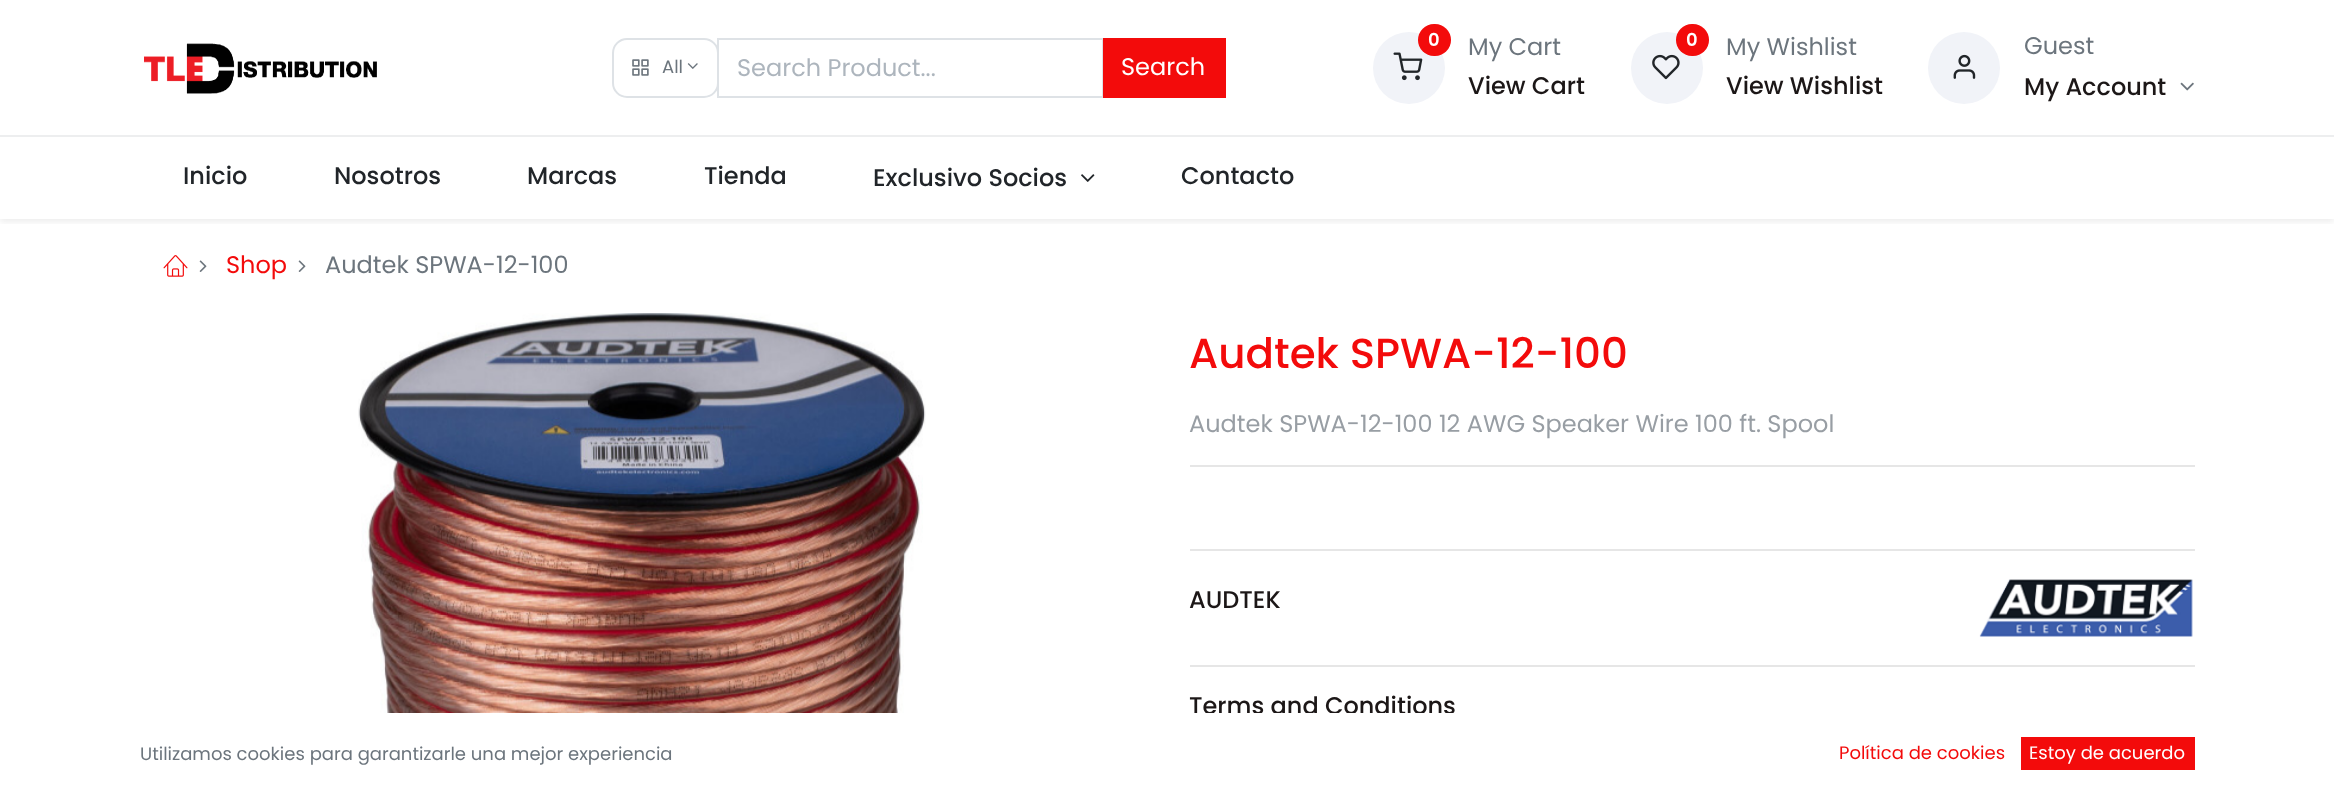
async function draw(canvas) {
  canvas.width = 2334
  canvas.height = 793
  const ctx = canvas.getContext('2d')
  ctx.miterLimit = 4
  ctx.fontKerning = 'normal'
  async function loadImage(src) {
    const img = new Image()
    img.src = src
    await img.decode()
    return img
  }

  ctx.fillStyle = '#fff'
  ctx.fillRect(0, 0, 2334, 793)
  ctx.fillStyle = '#edeeef'
  ctx.fillRect(0, 135, 2334, 2)
  ctx.drawImage(await loadImage('image0.png'), 144, 43, 233, 51)
  ctx.strokeStyle = '#dee2e6'
  ctx.lineWidth = 2
  ctx.strokeRect(718, 39, 385, 58)
  ctx.beginPath()
  ctx.roundRect(613, 39, 105, 58, 14)
  ctx.stroke()
  ctx.drawImage(await loadImage('image1.png'), 632, 59, 17, 17)
  ctx.font = '18px Poppins'
  ctx.fillStyle = '#6c757d'
  ctx.fillText('All', 662, 73)
  ctx.drawImage(await loadImage('image2.png'), 687, 63, 11, 6)
  ctx.font = '24px Poppins'
  ctx.fillStyle = '#adb5bd'
  ctx.fillText('Search Product...', 737, 76)
  ctx.fillStyle = '#f30b0b'
  ctx.fillRect(1103, 38, 123, 60)
  ctx.fillStyle = '#fff'
  ctx.fillText('Search', 1121, 75)
  ctx.fillStyle = '#f1f3f8'
  ctx.beginPath()
  ctx.arc(1409, 68, 36, 0, 2 * Math.PI)
  ctx.fill()
  ctx.drawImage(await loadImage('image3.png'), 1393, 52, 30, 29)
  ctx.fillStyle = '#f30b0b'
  ctx.beginPath()
  ctx.roundRect(1418, 24, 33, 32, 16)
  ctx.fill()
  ctx.font = '600 18px Poppins'
  ctx.fillStyle = '#fff'
  ctx.fillText('0', 1428, 46)
  ctx.font = '24px Poppins'
  ctx.fillStyle = '#6c757d'
  ctx.fillText('My Cart', 1468, 55)
  ctx.font = '500 24px Poppins'
  ctx.fillStyle = '#1c1717'
  ctx.fillText('View Cart', 1468, 94)
  ctx.fillStyle = '#f1f3f8'
  ctx.beginPath()
  ctx.arc(1667, 68, 36, 0, 2 * Math.PI)
  ctx.fill()
  ctx.drawImage(await loadImage('image4.png'), 1652, 54, 28, 26)
  ctx.fillStyle = '#f30b0b'
  ctx.beginPath()
  ctx.roundRect(1676, 24, 33, 32, 16)
  ctx.fill()
  ctx.font = '600 18px Poppins'
  ctx.fillStyle = '#fff'
  ctx.fillText('0', 1686, 46)
  ctx.font = '24px Poppins'
  ctx.fillStyle = '#6c757d'
  ctx.fillText('My Wishlist', 1726, 55)
  ctx.font = '500 24px Poppins'
  ctx.fillStyle = '#1c1717'
  ctx.fillText('View Wishlist', 1726, 94)
  ctx.fillStyle = '#f1f3f8'
  ctx.beginPath()
  ctx.arc(1964, 68, 36, 0, 2 * Math.PI)
  ctx.fill()
  ctx.drawImage(await loadImage('image5.png'), 1953, 54, 23, 25)
  ctx.font = '24px Poppins'
  ctx.fillStyle = '#6c757d'
  ctx.fillText('Guest', 2024, 54)
  ctx.font = '500 24px Poppins'
  ctx.fillStyle = '#1c1717'
  ctx.fillText('My Account', 2024, 95)
  ctx.drawImage(await loadImage('image6.png'), 2180, 82, 14, 9)
  ctx.save()
  ctx.beginPath()
  ctx.rect(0, 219, 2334, 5)
  ctx.clip()
  ctx.fillStyle = '#00000012'
  ctx.filter = 'blur(3px)'
  ctx.beginPath()
  ctx.rect(0, 140, 2334, 82)
  ctx.fill()
  ctx.filter = 'none'
  ctx.restore()
  ctx.fillStyle = '#212529'
  ctx.fillText('Inicio', 183, 184)
  ctx.fillText('Nosotros', 334, 184)
  ctx.fillText('Marcas', 527, 184)
  ctx.fillText('Tienda', 704, 184)
  ctx.fillText('Exclusivo Socios', 873, 186)
  ctx.drawImage(await loadImage('image7.png'), 1081, 174, 14, 8)
  ctx.fillText('Contacto', 1181, 184)
  ctx.drawImage(await loadImage('image8.png'), 163, 255, 25, 22)
  ctx.drawImage(await loadImage('image9.png'), 199, 260, 8, 12)
  ctx.font = '24px Poppins'
  ctx.fillStyle = '#f30b0b'
  ctx.fillText('Shop', 226, 273)
  ctx.drawImage(await loadImage('image9.png'), 298, 260, 8, 12)
  ctx.fillStyle = '#6c757d'
  ctx.fillText('Audtek SPWA-12-100', 325, 273)
  ctx.drawImage(await loadImage('image10.png'), 358, 313, 568, 400)
  ctx.font = '500 42px Poppins'
  ctx.fillStyle = '#f30b0b'
  ctx.fillText('Audtek SPWA-12-100', 1189, 368)
  ctx.font = '24px Poppins'
  ctx.fillStyle = '#989ea4'
  ctx.fillText('Audtek SPWA-12-100 12 AWG Speaker Wire 100 ft. Spool', 1189, 432)
  ctx.fillStyle = '#e6e6e6'
  ctx.fillRect(1190, 465, 1005, 2)
  ctx.fillRect(1190, 549, 1005, 2)
  ctx.font = '500 24px Poppins'
  ctx.fillStyle = '#1c1717'
  ctx.fillText('AUDTEK', 1189, 608)
  ctx.drawImage(await loadImage('image11.png'), 1979, 579, 214, 58)
  ctx.fillStyle = '#e6e6e6'
  ctx.fillRect(1190, 665, 1005, 2)
  ctx.fillStyle = '#1c1717'
  ctx.fillText('Terms and Conditions', 1189, 714)
  ctx.fillStyle = '#fff'
  ctx.fillRect(1194, 713, 260, 2)
  ctx.font = '18px Poppins'
  ctx.fillStyle = '#6c757d'
  ctx.fillText('Utilizamos cookies para garantizarle una mejor experiencia', 140, 760)
  ctx.fillStyle = '#f30b0b'
  ctx.fillText('Política de cookies', 1839, 759)
  ctx.fillRect(2021, 737, 174, 33)
  ctx.fillStyle = '#fff'
  ctx.fillText('Estoy de acuerdo', 2029, 759)
}

draw(document.querySelector('canvas'))
